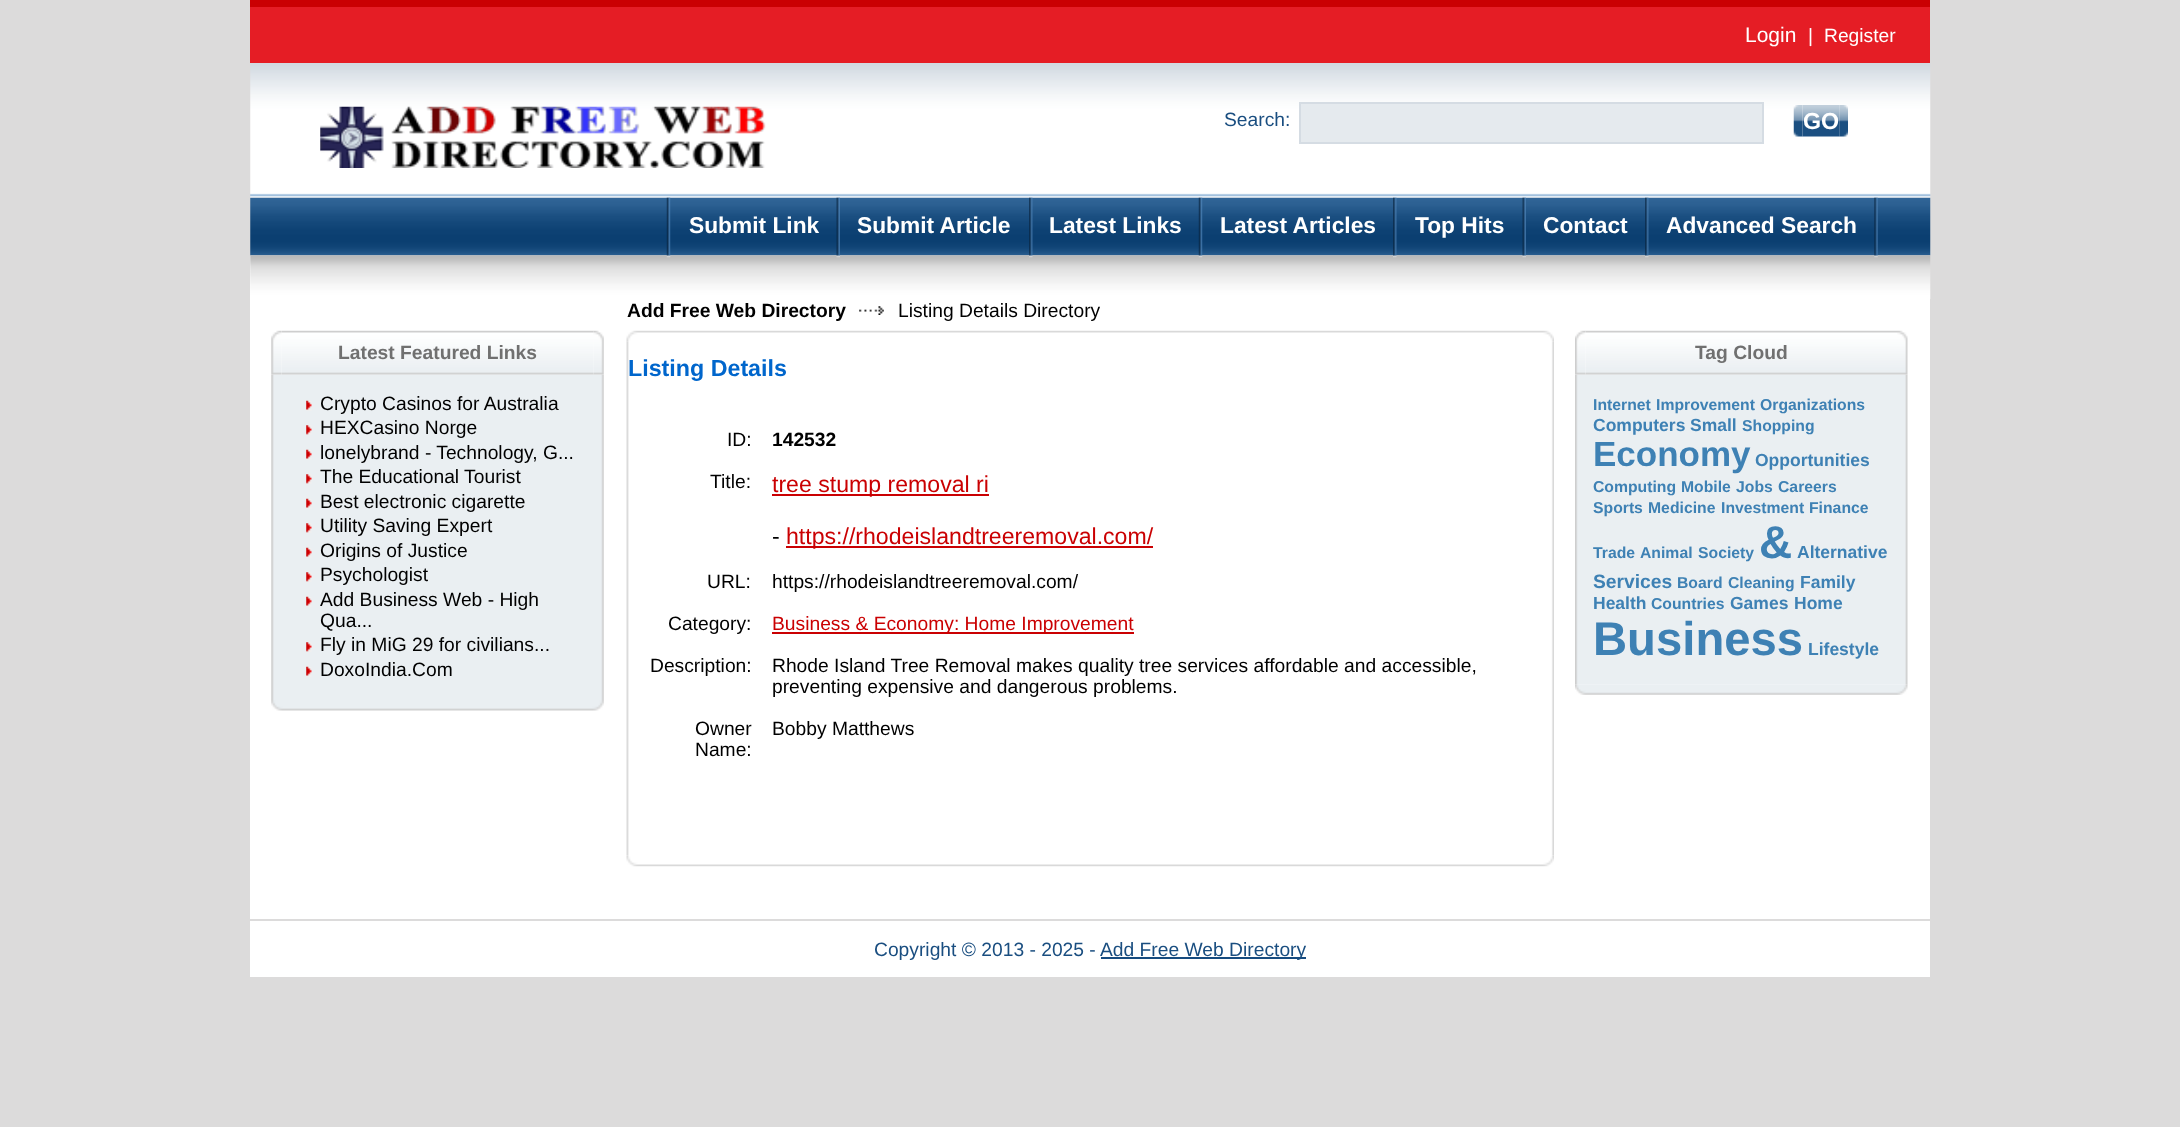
async function draw(canvas) {
  canvas.width = 2180
  canvas.height = 1127
  const ctx = canvas.getContext('2d')
  ctx.miterLimit = 4
  ctx.fontKerning = 'normal'
  async function loadImage(src) {
    const img = new Image()
    img.src = src
    await img.decode()
    return img
  }

  ctx.fillStyle = '#dcdbdb'
  ctx.fillRect(0, 0, 2180, 1127)
  ctx.fillStyle = '#e51d25'
  ctx.fillRect(250, 7, 1680, 56)
  ctx.fillStyle = '#ca0002'
  ctx.fillRect(250, 0, 1680, 7)
  ctx.font = '21px Liberation Sans'
  ctx.fillStyle = '#fff'
  ctx.fillText('Login', 1745, 42)
  ctx.font = '19.25px Liberation Sans'
  ctx.fillText('|', 1808, 42)
  ctx.fillText('Register', 1824, 42)
  ctx.drawImage(await loadImage('image0.png'), 250, 63, 1681, 135)
  ctx.drawImage(await loadImage('image1.png'), 320, 106, 446, 62)
  ctx.fillStyle = '#1a4e80'
  ctx.fillText('Search:', 1224, 126)
  ctx.fillStyle = '#e5eaee'
  ctx.beginPath()
  ctx.rect(1300, 103, 463, 40)
  ctx.fill()
  ctx.strokeStyle = '#d5dce3'
  ctx.lineWidth = 2
  ctx.stroke()
  ctx.drawImage(await loadImage('image2.png'), 1793, 105, 10, 32)
  ctx.drawImage(await loadImage('image3.png'), 1802, 105, 38, 32)
  ctx.font = 'bold 23.25px Liberation Sans'
  ctx.fillStyle = '#fff'
  ctx.fillText('GO', 1803, 129)
  ctx.drawImage(await loadImage('image4.png'), 1839, 105, 9, 32)
  ctx.drawImage(await loadImage('image5.png'), 250, 197, 1681, 59)
  ctx.fillRect(250, 256, 1680, 663)
  ctx.drawImage(await loadImage('image10.png'), 250, 255, 1681, 44)
  ctx.drawImage(await loadImage('image6.png'), 666, 197, 5, 61)
  ctx.font = 'bold 22.75px Liberation Sans'
  ctx.fillText('Submit Link', 689, 233)
  ctx.drawImage(await loadImage('image7.png'), 836, 197, 4, 61)
  ctx.fillText('Submit Article', 857, 233)
  ctx.drawImage(await loadImage('image8.png'), 1029, 197, 4, 61)
  ctx.fillText('Latest Links', 1049, 233)
  ctx.drawImage(await loadImage('image6.png'), 1198, 197, 5, 61)
  ctx.fillText('Latest Articles', 1220, 233)
  ctx.drawImage(await loadImage('image8.png'), 1393, 197, 4, 61)
  ctx.fillText('Top Hits', 1415, 233)
  ctx.drawImage(await loadImage('image7.png'), 1522, 197, 4, 61)
  ctx.fillText('Contact', 1543, 233)
  ctx.drawImage(await loadImage('image8.png'), 1645, 197, 4, 61)
  ctx.fillText('Advanced Search', 1666, 233)
  ctx.drawImage(await loadImage('image9.png'), 1874, 197, 4, 61)
  ctx.font = 'bold 19.25px Liberation Sans'
  ctx.fillStyle = '#000'
  ctx.fillText('Add Free Web Directory', 627, 317)
  ctx.drawImage(await loadImage('image11.png'), 859, 306, 25, 9)
  ctx.font = '19.25px Liberation Sans'
  ctx.fillText('Listing Details Directory', 898, 317)
  ctx.drawImage(await loadImage('image15.png'), 271, 374, 333, 326)
  ctx.drawImage(await loadImage('image12.png'), 271, 330, 11, 45)
  ctx.drawImage(await loadImage('image13.png'), 282, 330, 312, 45)
  ctx.font = 'bold 19.25px Liberation Sans'
  ctx.fillStyle = '#707070'
  ctx.fillText('Latest Featured Links', 338, 359)
  ctx.drawImage(await loadImage('image14.png'), 593, 330, 11, 45)
  ctx.drawImage(await loadImage('image16.png'), 306, 400, 6, 11)
  ctx.font = '19.25px Liberation Sans'
  ctx.fillStyle = '#000'
  ctx.fillText('Crypto Casinos for Australia', 320, 410)
  ctx.drawImage(await loadImage('image17.png'), 306, 425, 6, 10)
  ctx.fillText('HEXCasino Norge', 320, 434)
  ctx.drawImage(await loadImage('image16.png'), 306, 449, 6, 11)
  ctx.fillText('lonelybrand - Technology, G...', 320, 459)
  ctx.drawImage(await loadImage('image17.png'), 306, 474, 6, 10)
  ctx.fillText('The Educational Tourist', 320, 483)
  ctx.drawImage(await loadImage('image16.png'), 306, 498, 6, 11)
  ctx.fillText('Best electronic cigarette', 320, 508)
  ctx.drawImage(await loadImage('image17.png'), 306, 523, 6, 10)
  ctx.fillText('Utility Saving Expert', 320, 532)
  ctx.drawImage(await loadImage('image16.png'), 306, 547, 6, 11)
  ctx.fillText('Origins of Justice', 320, 557)
  ctx.drawImage(await loadImage('image17.png'), 306, 572, 6, 10)
  ctx.fillText('Psychologist', 320, 581)
  ctx.drawImage(await loadImage('image16.png'), 306, 596, 6, 11)
  ctx.fillText('Add Business Web - High', 320, 606)
  ctx.fillText('Qua...', 320, 627)
  ctx.drawImage(await loadImage('image17.png'), 306, 642, 6, 10)
  ctx.fillText('Fly in MiG 29 for civilians...', 320, 651)
  ctx.drawImage(await loadImage('image16.png'), 306, 666, 6, 11)
  ctx.fillText('DoxoIndia.Com', 320, 676)
  ctx.drawImage(await loadImage('image18.png'), 271, 700, 333, 11)
  ctx.drawImage(await loadImage('image19.png'), 626, 330, 928, 12)
  ctx.drawImage(await loadImage('image20.png'), 626, 341, 928, 515)
  ctx.font = 'bold 23.25px Liberation Sans'
  ctx.fillStyle = '#06c'
  ctx.fillText('Listing Details', 628, 376)
  ctx.font = '19.25px Liberation Sans'
  ctx.fillStyle = '#000'
  ctx.fillText('ID:', 727, 446)
  ctx.font = 'bold 19.25px Liberation Sans'
  ctx.fillText('142532', 772, 446)
  ctx.font = '19.25px Liberation Sans'
  ctx.fillText('Title:', 710, 488)
  ctx.fillStyle = '#ca0002'
  ctx.fillRect(772, 494, 217, 2)
  ctx.font = '23.1px Liberation Sans'
  ctx.fillText('tree stump removal ri', 772, 492)
  ctx.fillStyle = '#000'
  ctx.fillText('-', 772, 544)
  ctx.fillStyle = '#ca0002'
  ctx.fillRect(786, 546, 367, 2)
  ctx.fillText('https://rhodeislandtreeremoval.com/', 786, 544)
  ctx.font = '19.25px Liberation Sans'
  ctx.fillStyle = '#000'
  ctx.fillText('URL:', 707, 588)
  ctx.fillText('https://rhodeislandtreeremoval.com/', 772, 588)
  ctx.fillText('Category:', 668, 630)
  ctx.fillStyle = '#ca0002'
  ctx.fillRect(772, 632, 362, 2)
  ctx.fillText('Business & Economy: Home Improvement', 772, 630)
  ctx.fillStyle = '#000'
  ctx.fillText('Description:', 650, 672)
  ctx.fillText('Rhode Island Tree Removal makes quality tree services affordable and accessible,', 772, 672)
  ctx.fillText('preventing expensive and dangerous problems.', 772, 693)
  ctx.fillText('Owner', 695, 735)
  ctx.fillText('Name:', 695, 756)
  ctx.fillText('Bobby Matthews', 772, 735)
  ctx.drawImage(await loadImage('image21.png'), 626, 856, 928, 11)
  ctx.drawImage(await loadImage('image25.png'), 1575, 374, 333, 311)
  ctx.drawImage(await loadImage('image22.png'), 1575, 330, 11, 45)
  ctx.drawImage(await loadImage('image23.png'), 1585, 330, 312, 45)
  ctx.font = 'bold 19.25px Liberation Sans'
  ctx.fillStyle = '#707070'
  ctx.fillText('Tag Cloud', 1695, 359)
  ctx.drawImage(await loadImage('image24.png'), 1897, 330, 11, 45)
  ctx.font = 'bold 15.75px Liberation Sans'
  ctx.fillStyle = '#3e81b4'
  ctx.fillText('Internet', 1593, 410)
  ctx.fillText('Improvement', 1656, 410)
  ctx.fillText('Organizations', 1760, 410)
  ctx.font = 'bold 17.5px Liberation Sans'
  ctx.fillText('Computers', 1593, 431)
  ctx.fillText('Small', 1690, 431)
  ctx.font = 'bold 15.75px Liberation Sans'
  ctx.fillText('Shopping', 1742, 431)
  ctx.font = 'bold 35px Liberation Sans'
  ctx.fillText('Economy', 1593, 466)
  ctx.font = 'bold 17.5px Liberation Sans'
  ctx.fillText('Opportunities', 1755, 466)
  ctx.font = 'bold 15.75px Liberation Sans'
  ctx.fillText('Computing', 1593, 492)
  ctx.fillText('Mobile', 1681, 492)
  ctx.fillText('Jobs', 1736, 492)
  ctx.fillText('Careers', 1778, 492)
  ctx.fillText('Sports', 1593, 513)
  ctx.fillText('Medicine', 1648, 513)
  ctx.fillText('Investment', 1721, 513)
  ctx.fillText('Finance', 1809, 513)
  ctx.fillText('Trade', 1593, 558)
  ctx.fillText('Animal', 1640, 558)
  ctx.fillText('Society', 1698, 558)
  ctx.font = 'bold 46px Liberation Sans'
  ctx.fillText('&', 1759, 558)
  ctx.font = 'bold 17.5px Liberation Sans'
  ctx.fillText('Alternative', 1797, 558)
  ctx.font = 'bold 19.25px Liberation Sans'
  ctx.fillText('Services', 1593, 588)
  ctx.font = 'bold 15.75px Liberation Sans'
  ctx.fillText('Board', 1677, 588)
  ctx.fillText('Cleaning', 1728, 588)
  ctx.font = 'bold 17.5px Liberation Sans'
  ctx.fillText('Family', 1800, 588)
  ctx.fillText('Health', 1593, 609)
  ctx.font = 'bold 15.75px Liberation Sans'
  ctx.fillText('Countries', 1651, 609)
  ctx.font = 'bold 17.5px Liberation Sans'
  ctx.fillText('Games', 1730, 609)
  ctx.fillText('Home', 1794, 609)
  ctx.font = 'bold 47.25px Liberation Sans'
  ctx.fillText('Business', 1593, 655)
  ctx.font = 'bold 17.5px Liberation Sans'
  ctx.fillText('Lifestyle', 1808, 655)
  ctx.drawImage(await loadImage('image26.png'), 1575, 684, 333, 11)
  ctx.fillStyle = '#fff'
  ctx.fillRect(250, 921, 1680, 56)
  ctx.font = '19.25px Liberation Sans'
  ctx.fillStyle = '#1a4e80'
  ctx.fillText('Copyright © 2013 - 2025 -', 874, 956)
  ctx.fillStyle = '#164b7f'
  ctx.fillRect(1101, 957, 205, 2)
  ctx.fillStyle = '#1a4e80'
  ctx.fillText('Add Free Web Directory', 1100, 956)
}

draw(document.querySelector('canvas'))
